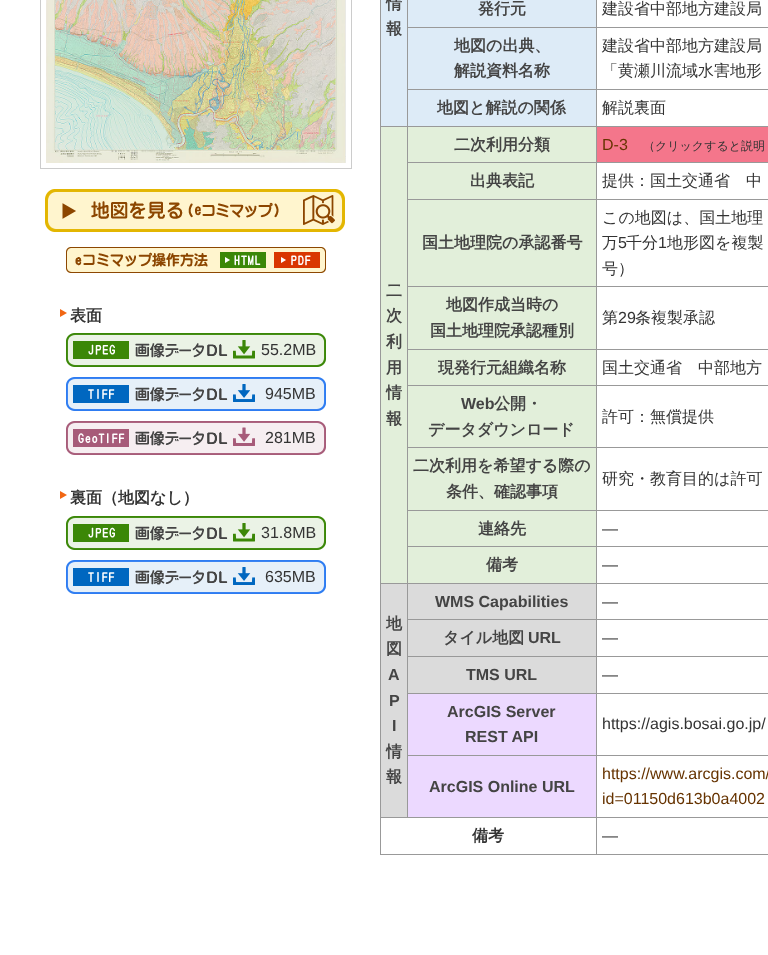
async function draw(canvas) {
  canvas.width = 768
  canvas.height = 955
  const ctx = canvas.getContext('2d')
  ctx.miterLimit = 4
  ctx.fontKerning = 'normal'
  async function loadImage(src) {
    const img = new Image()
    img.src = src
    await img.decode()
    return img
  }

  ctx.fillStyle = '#fff'
  ctx.fillRect(0, 0, 768, 955)
  ctx.strokeStyle = '#ccc'
  ctx.strokeRect(40.5, -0.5, 311, 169)
  ctx.drawImage(await loadImage('image0.png'), 46, 0, 300, 163)
  ctx.drawImage(await loadImage('image1.png'), 45, 189, 300, 43)
  ctx.drawImage(await loadImage('image2.png'), 66, 247, 260, 26)
  ctx.drawImage(await loadImage('image3.png'), 220, 252, 46, 16)
  ctx.drawImage(await loadImage('image4.png'), 274, 252, 46, 16)
  ctx.fillStyle = '#f16613'
  ctx.beginPath()
  ctx.moveTo(60, 317)
  ctx.lineTo(60, 309)
  ctx.lineTo(67, 313)
  ctx.closePath()
  ctx.fill()
  ctx.font = 'bold 16px WenQuanYi Zen Hei'
  ctx.fillStyle = '#333'
  ctx.fillText('表面', 70, 321)
  ctx.drawImage(await loadImage('image5.png'), 66, 333, 260, 34)
  ctx.font = '16px Liberation Sans'
  ctx.fillText('55.2MB', 261, 355)
  ctx.drawImage(await loadImage('image6.png'), 66, 377, 260, 34)
  ctx.fillText('945MB', 265, 399)
  ctx.drawImage(await loadImage('image7.png'), 66, 421, 260, 34)
  ctx.fillText('281MB', 265, 443)
  ctx.fillStyle = '#f16613'
  ctx.beginPath()
  ctx.moveTo(60, 499)
  ctx.lineTo(60, 491)
  ctx.lineTo(67, 495)
  ctx.closePath()
  ctx.fill()
  ctx.font = 'bold 16px WenQuanYi Zen Hei'
  ctx.fillStyle = '#333'
  ctx.fillText('裏面（地図なし）', 70, 503)
  ctx.drawImage(await loadImage('image5.png'), 66, 516, 260, 34)
  ctx.font = '16px Liberation Sans'
  ctx.fillText('31.8MB', 261, 538)
  ctx.drawImage(await loadImage('image6.png'), 66, 560, 260, 34)
  ctx.fillText('635MB', 265, 582)
  ctx.fillStyle = '#999'
  ctx.fillRect(380, 854, 388, 1)
  ctx.fillStyle = '#ddebf7'
  ctx.fillRect(381, 0, 26, 126)
  ctx.fillStyle = '#999'
  ctx.fillRect(380, 0, 1, 126)
  ctx.font = 'bold 16px WenQuanYi Zen Hei'
  ctx.fillStyle = '#444'
  ctx.fillText('情', 386, 9)
  ctx.fillText('報', 386, 34)
  ctx.fillStyle = '#ddebf7'
  ctx.fillRect(408, 0, 188, 27)
  ctx.fillStyle = '#999'
  ctx.fillRect(407, 0, 1, 27)
  ctx.fillStyle = '#444'
  ctx.fillText('発行元', 478, 14)
  ctx.fillStyle = '#999'
  ctx.fillRect(596, 0, 1, 27)
  ctx.font = '500 16px WenQuanYi Zen Hei'
  ctx.fillStyle = '#333'
  ctx.fillText('建設省中部地方建設局', 602, 14)
  ctx.fillStyle = '#ddebf7'
  ctx.fillRect(408, 28, 188, 61)
  ctx.fillStyle = '#999'
  ctx.fillRect(407, 27, 361, 1)
  ctx.fillRect(407, 27, 1, 62)
  ctx.font = 'bold 16px WenQuanYi Zen Hei'
  ctx.fillStyle = '#444'
  ctx.fillText('地図の出典、', 454, 51)
  ctx.fillText('解説資料名称', 454, 76)
  ctx.fillStyle = '#999'
  ctx.fillRect(596, 27, 1, 62)
  ctx.font = '500 16px WenQuanYi Zen Hei'
  ctx.fillStyle = '#333'
  ctx.fillText('建設省中部地方建設局', 602, 51)
  ctx.fillText('「黄瀬川流域水害地形', 602, 76)
  ctx.fillStyle = '#ddebf7'
  ctx.fillRect(408, 90, 188, 36)
  ctx.fillStyle = '#999'
  ctx.fillRect(407, 89, 361, 1)
  ctx.fillRect(407, 89, 1, 37)
  ctx.font = 'bold 16px WenQuanYi Zen Hei'
  ctx.fillStyle = '#444'
  ctx.fillText('地図と解説の関係', 437, 113)
  ctx.fillStyle = '#999'
  ctx.fillRect(596, 89, 1, 37)
  ctx.font = '500 16px WenQuanYi Zen Hei'
  ctx.fillStyle = '#333'
  ctx.fillText('解説裏面', 602, 113)
  ctx.fillStyle = '#e2efda'
  ctx.fillRect(408, 127, 188, 35)
  ctx.fillStyle = '#999'
  ctx.fillRect(380, 126, 388, 1)
  ctx.fillRect(407, 126, 1, 36)
  ctx.font = 'bold 16px WenQuanYi Zen Hei'
  ctx.fillStyle = '#444'
  ctx.fillText('二次利用分類', 454, 150)
  ctx.fillStyle = '#f4768b'
  ctx.fillRect(597, 127, 171, 35)
  ctx.fillStyle = '#999'
  ctx.fillRect(596, 126, 1, 36)
  ctx.font = '16px Liberation Sans'
  ctx.fillStyle = '#630'
  ctx.fillText('D-3', 602, 150)
  ctx.font = '500 12px WenQuanYi Zen Hei'
  ctx.fillStyle = '#333'
  ctx.fillText('（クリックすると説明', 643, 150)
  ctx.fillStyle = '#e2efda'
  ctx.fillRect(381, 127, 26, 456)
  ctx.fillStyle = '#999'
  ctx.fillRect(380, 126, 1, 457)
  ctx.font = 'bold 16px WenQuanYi Zen Hei'
  ctx.fillStyle = '#444'
  ctx.fillText('二', 386, 296)
  ctx.fillText('次', 386, 321)
  ctx.fillText('利', 386, 347)
  ctx.fillText('用', 386, 373)
  ctx.fillText('情', 386, 398)
  ctx.fillText('報', 386, 424)
  ctx.fillStyle = '#e2efda'
  ctx.fillRect(408, 163, 188, 36)
  ctx.fillStyle = '#999'
  ctx.fillRect(407, 162, 361, 1)
  ctx.fillRect(407, 162, 1, 37)
  ctx.fillStyle = '#444'
  ctx.fillText('出典表記', 470, 186)
  ctx.fillStyle = '#999'
  ctx.fillRect(596, 162, 1, 37)
  ctx.font = '500 16px WenQuanYi Zen Hei'
  ctx.fillStyle = '#333'
  ctx.fillText('提供：国土交通省　中', 602, 186)
  ctx.fillStyle = '#e2efda'
  ctx.fillRect(408, 200, 188, 86)
  ctx.fillStyle = '#999'
  ctx.fillRect(407, 199, 361, 1)
  ctx.fillRect(407, 199, 1, 87)
  ctx.font = 'bold 16px WenQuanYi Zen Hei'
  ctx.fillStyle = '#444'
  ctx.fillText('国土地理院の承認番号', 422, 248)
  ctx.fillStyle = '#999'
  ctx.fillRect(596, 199, 1, 87)
  ctx.font = '500 16px WenQuanYi Zen Hei'
  ctx.fillStyle = '#333'
  ctx.fillText('この地図は、国土地理', 602, 223)
  ctx.fillText('万', 602, 248)
  ctx.font = '16px Liberation Sans'
  ctx.fillText('5', 618, 248)
  ctx.font = '500 16px WenQuanYi Zen Hei'
  ctx.fillText('千分', 626, 248)
  ctx.font = '16px Liberation Sans'
  ctx.fillText('1', 658, 248)
  ctx.font = '500 16px WenQuanYi Zen Hei'
  ctx.fillText('地形図を複製', 667, 248)
  ctx.fillText('号）', 602, 274)
  ctx.fillStyle = '#e2efda'
  ctx.fillRect(408, 287, 188, 62)
  ctx.fillStyle = '#999'
  ctx.fillRect(407, 286, 361, 1)
  ctx.fillRect(407, 286, 1, 63)
  ctx.font = 'bold 16px WenQuanYi Zen Hei'
  ctx.fillStyle = '#444'
  ctx.fillText('地図作成当時の', 446, 310)
  ctx.fillText('国土地理院承認種別', 430, 336)
  ctx.fillStyle = '#999'
  ctx.fillRect(596, 286, 1, 63)
  ctx.font = '500 16px WenQuanYi Zen Hei'
  ctx.fillStyle = '#333'
  ctx.fillText('第', 602, 323)
  ctx.font = '16px Liberation Sans'
  ctx.fillText('29', 618, 323)
  ctx.font = '500 16px WenQuanYi Zen Hei'
  ctx.fillText('条複製承認', 635, 323)
  ctx.fillStyle = '#e2efda'
  ctx.fillRect(408, 350, 188, 35)
  ctx.fillStyle = '#999'
  ctx.fillRect(407, 349, 361, 1)
  ctx.fillRect(407, 349, 1, 36)
  ctx.font = 'bold 16px WenQuanYi Zen Hei'
  ctx.fillStyle = '#444'
  ctx.fillText('現発行元組織名称', 438, 373)
  ctx.fillStyle = '#999'
  ctx.fillRect(596, 349, 1, 36)
  ctx.font = '500 16px WenQuanYi Zen Hei'
  ctx.fillStyle = '#333'
  ctx.fillText('国土交通省　中部地方', 602, 373)
  ctx.fillStyle = '#e2efda'
  ctx.fillRect(408, 386, 188, 61)
  ctx.fillStyle = '#999'
  ctx.fillRect(407, 385, 361, 1)
  ctx.fillRect(407, 385, 1, 62)
  ctx.font = 'bold 16px Liberation Sans'
  ctx.fillStyle = '#444'
  ctx.fillText('Web', 461, 409)
  ctx.font = 'bold 16px WenQuanYi Zen Hei'
  ctx.fillText('公開・', 494, 409)
  ctx.fillText('データダウンロード', 428, 435)
  ctx.fillStyle = '#999'
  ctx.fillRect(596, 385, 1, 62)
  ctx.font = '500 16px WenQuanYi Zen Hei'
  ctx.fillStyle = '#333'
  ctx.fillText('許可：無償提供', 602, 422)
  ctx.fillStyle = '#e2efda'
  ctx.fillRect(408, 448, 188, 62)
  ctx.fillStyle = '#999'
  ctx.fillRect(407, 447, 361, 1)
  ctx.fillRect(407, 447, 1, 63)
  ctx.font = 'bold 16px WenQuanYi Zen Hei'
  ctx.fillStyle = '#444'
  ctx.fillText('二次利用を希望する際の', 413, 471)
  ctx.fillText('条件、確認事項', 446, 497)
  ctx.fillStyle = '#999'
  ctx.fillRect(596, 447, 1, 63)
  ctx.font = '500 16px WenQuanYi Zen Hei'
  ctx.fillStyle = '#333'
  ctx.fillText('研究・教育目的は許可', 602, 484)
  ctx.fillStyle = '#e2efda'
  ctx.fillRect(408, 511, 188, 35)
  ctx.fillStyle = '#999'
  ctx.fillRect(407, 510, 361, 1)
  ctx.fillRect(407, 510, 1, 36)
  ctx.font = 'bold 16px WenQuanYi Zen Hei'
  ctx.fillStyle = '#444'
  ctx.fillText('連絡先', 478, 534)
  ctx.fillStyle = '#999'
  ctx.fillRect(596, 510, 1, 36)
  ctx.font = '16px Liberation Sans'
  ctx.fillStyle = '#333'
  ctx.fillText('―', 602, 534)
  ctx.fillStyle = '#e2efda'
  ctx.fillRect(408, 547, 188, 36)
  ctx.fillStyle = '#999'
  ctx.fillRect(407, 546, 361, 1)
  ctx.fillRect(407, 546, 1, 37)
  ctx.font = 'bold 16px WenQuanYi Zen Hei'
  ctx.fillStyle = '#444'
  ctx.fillText('備考', 486, 570)
  ctx.fillStyle = '#999'
  ctx.fillRect(596, 546, 1, 37)
  ctx.font = '16px Liberation Sans'
  ctx.fillStyle = '#333'
  ctx.fillText('―', 602, 570)
  ctx.fillStyle = '#dbdbdb'
  ctx.fillRect(408, 584, 188, 35)
  ctx.fillStyle = '#999'
  ctx.fillRect(380, 583, 388, 1)
  ctx.fillRect(407, 583, 1, 36)
  ctx.font = 'bold 16px Liberation Sans'
  ctx.fillStyle = '#444'
  ctx.fillText('WMS Capabilities', 435, 607)
  ctx.fillStyle = '#999'
  ctx.fillRect(596, 583, 1, 36)
  ctx.font = '16px Liberation Sans'
  ctx.fillStyle = '#333'
  ctx.fillText('―', 602, 607)
  ctx.fillStyle = '#dbdbdb'
  ctx.fillRect(381, 584, 26, 233)
  ctx.fillStyle = '#999'
  ctx.fillRect(380, 583, 1, 234)
  ctx.font = 'bold 16px WenQuanYi Zen Hei'
  ctx.fillStyle = '#444'
  ctx.fillText('地', 386, 629)
  ctx.fillText('図', 386, 654)
  ctx.font = 'bold 16px Liberation Sans'
  ctx.fillText('A', 388, 680)
  ctx.fillText('P', 389, 706)
  ctx.fillText('I', 392, 731)
  ctx.font = 'bold 16px WenQuanYi Zen Hei'
  ctx.fillText('情', 386, 757)
  ctx.fillText('報', 386, 782)
  ctx.fillStyle = '#dbdbdb'
  ctx.fillRect(408, 620, 188, 36)
  ctx.fillStyle = '#999'
  ctx.fillRect(407, 619, 361, 1)
  ctx.fillRect(407, 619, 1, 37)
  ctx.fillStyle = '#444'
  ctx.fillText('タイル地図', 443, 643)
  ctx.font = 'bold 16px Liberation Sans'
  ctx.fillText('URL', 528, 643)
  ctx.fillStyle = '#999'
  ctx.fillRect(596, 619, 1, 37)
  ctx.font = '16px Liberation Sans'
  ctx.fillStyle = '#333'
  ctx.fillText('―', 602, 643)
  ctx.fillStyle = '#dbdbdb'
  ctx.fillRect(408, 657, 188, 36)
  ctx.fillStyle = '#999'
  ctx.fillRect(407, 656, 361, 1)
  ctx.fillRect(407, 656, 1, 37)
  ctx.font = 'bold 16px Liberation Sans'
  ctx.fillStyle = '#444'
  ctx.fillText('TMS URL', 466, 680)
  ctx.fillStyle = '#999'
  ctx.fillRect(596, 656, 1, 37)
  ctx.font = '16px Liberation Sans'
  ctx.fillStyle = '#333'
  ctx.fillText('―', 602, 680)
  ctx.fillStyle = '#ecd9ff'
  ctx.fillRect(408, 694, 188, 61)
  ctx.fillStyle = '#999'
  ctx.fillRect(407, 693, 361, 1)
  ctx.fillRect(407, 693, 1, 62)
  ctx.font = 'bold 16px Liberation Sans'
  ctx.fillStyle = '#444'
  ctx.fillText('ArcGIS Server', 447, 717)
  ctx.fillText('REST API', 465, 742)
  ctx.fillStyle = '#999'
  ctx.fillRect(596, 693, 1, 62)
  ctx.font = '16px Liberation Sans'
  ctx.fillStyle = '#333'
  ctx.fillText('https://agis.bosai.go.jp/', 602, 729)
  ctx.fillStyle = '#ecd9ff'
  ctx.fillRect(408, 756, 188, 61)
  ctx.fillStyle = '#999'
  ctx.fillRect(407, 755, 361, 1)
  ctx.fillRect(407, 755, 1, 62)
  ctx.font = 'bold 16px Liberation Sans'
  ctx.fillStyle = '#444'
  ctx.fillText('ArcGIS Online URL', 429, 792)
  ctx.fillStyle = '#999'
  ctx.fillRect(596, 755, 1, 62)
  ctx.font = '16px Liberation Sans'
  ctx.fillStyle = '#630'
  ctx.fillText('https://www.arcgis.com/', 602, 779)
  ctx.fillText('id=01150d613b0a4002', 602, 804)
  ctx.fillStyle = '#999'
  ctx.fillRect(380, 817, 388, 1)
  ctx.fillRect(380, 817, 1, 37)
  ctx.font = 'bold 16px WenQuanYi Zen Hei'
  ctx.fillStyle = '#333'
  ctx.fillText('備考', 472, 841)
  ctx.fillStyle = '#999'
  ctx.fillRect(596, 817, 1, 37)
  ctx.font = '16px Liberation Sans'
  ctx.fillStyle = '#333'
  ctx.fillText('―', 602, 841)
}

draw(document.querySelector('canvas'))
